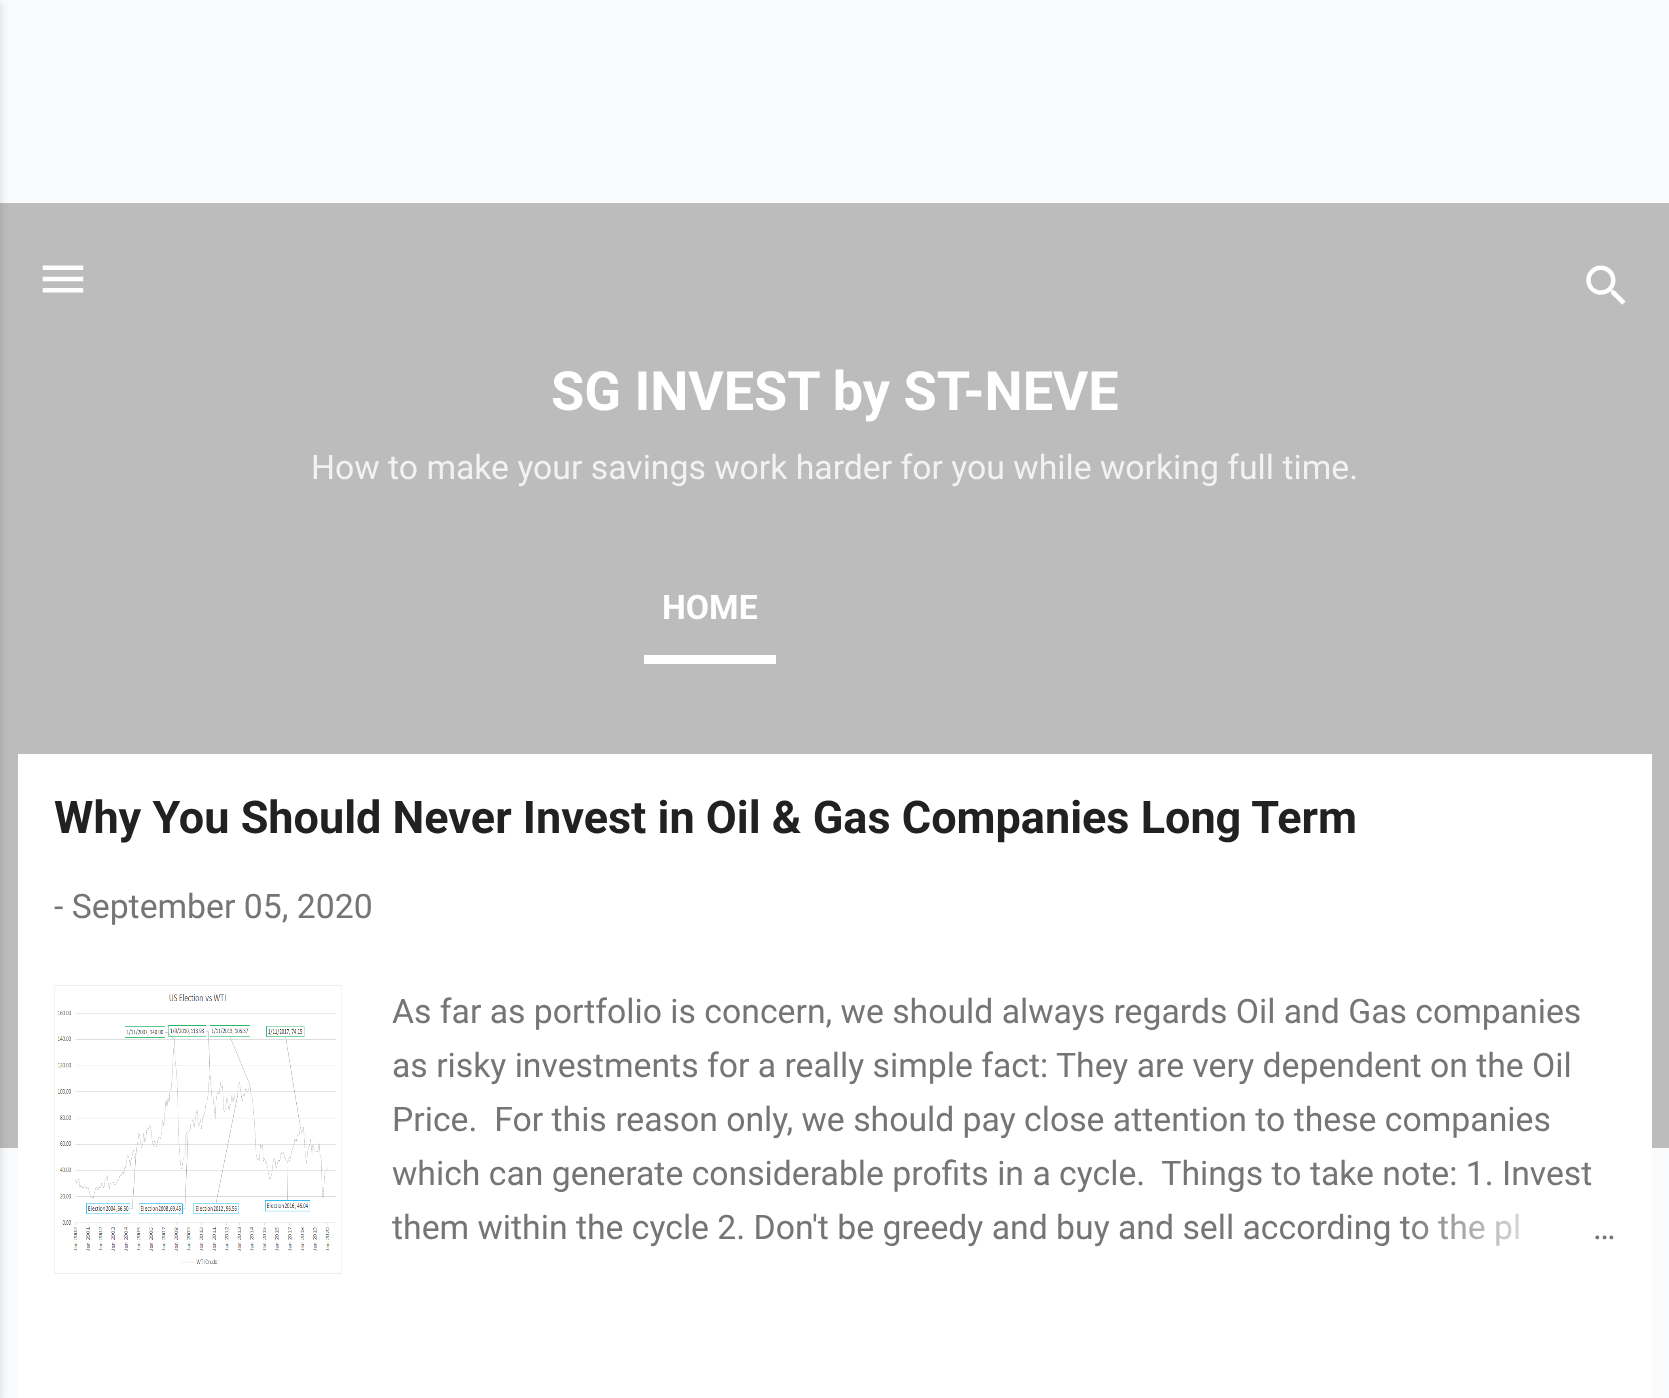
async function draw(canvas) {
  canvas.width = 1669
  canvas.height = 1398
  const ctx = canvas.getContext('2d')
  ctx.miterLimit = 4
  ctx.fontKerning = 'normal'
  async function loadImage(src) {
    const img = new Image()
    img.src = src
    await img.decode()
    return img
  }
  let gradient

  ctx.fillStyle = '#fafbfc'
  ctx.fillRect(0, 0, 1669, 1398)
  ctx.fillStyle = '#bcbcbd'
  ctx.fillRect(0, 203, 1669, 945)
  ctx.fillStyle = '#0000001a'
  ctx.filter = 'blur(3.5px)'
  ctx.beginPath()
  ctx.rect(-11, 2, 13, 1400)
  ctx.fill()
  ctx.filter = 'none'
  ctx.drawImage(await loadImage('image0.png'), 42, 265, 42, 28)
  ctx.drawImage(await loadImage('image1.png'), 1586, 265, 40, 40)
  ctx.font = 'bold 54px Roboto'
  ctx.fillStyle = '#fff'
  ctx.fillText('SG INVEST by ST-NEVE', 551, 410)
  ctx.font = '33.75px Roboto'
  ctx.fillStyle = '#f2f2f2'
  ctx.fillText('How to make your savings work harder for you while working full time.', 311, 479)
  ctx.fillStyle = '#fff'
  ctx.fillRect(644, 655, 132, 9)
  ctx.font = 'bold 33.75px Roboto'
  ctx.fillText('HOME', 662, 619)
  ctx.fillRect(18, 754, 1634, 644)
  ctx.font = 'bold 45px Roboto'
  ctx.fillStyle = '#212121'
  ctx.fillText('Why You Should Never Invest in Oil & Gas Companies Long Term', 54, 833)
  ctx.font = '33.75px Roboto'
  ctx.fillStyle = '#757575'
  ctx.fillText('- September 05, 2020', 54, 918)
  ctx.drawImage(await loadImage('image2.png'), 54, 985, 288, 289)
  ctx.fillText('As far as portfolio is concern, we should always regards Oil and Gas companies', 392, 1023)
  ctx.fillText('as risky investments for a really simple fact: They are very dependent on the Oil', 392, 1077)
  ctx.fillText('Price.  For this reason only, we should pay close attention to these companies', 392, 1131)
  ctx.fillText('which can generate considerable profits in a cycle.  Things to take note: 1. Invest', 392, 1185)
  ctx.fillText('them within the cycle 2. Don\'t be greedy and buy and sell according to the pl', 392, 1239)
  gradient = ctx.createLinearGradient(1616, 1229, 1400, 1229)
  gradient.addColorStop(0, '#fff')
  gradient.addColorStop(0.2, '#fff')
  gradient.addColorStop(1, '#ffffff00')
  ctx.fillStyle = gradient
  ctx.fillRect(1404, 1213, 115, 33)
  ctx.fillStyle = '#757575'
  ctx.fillText('…', 1593, 1239)
}

draw(document.querySelector('canvas'))
